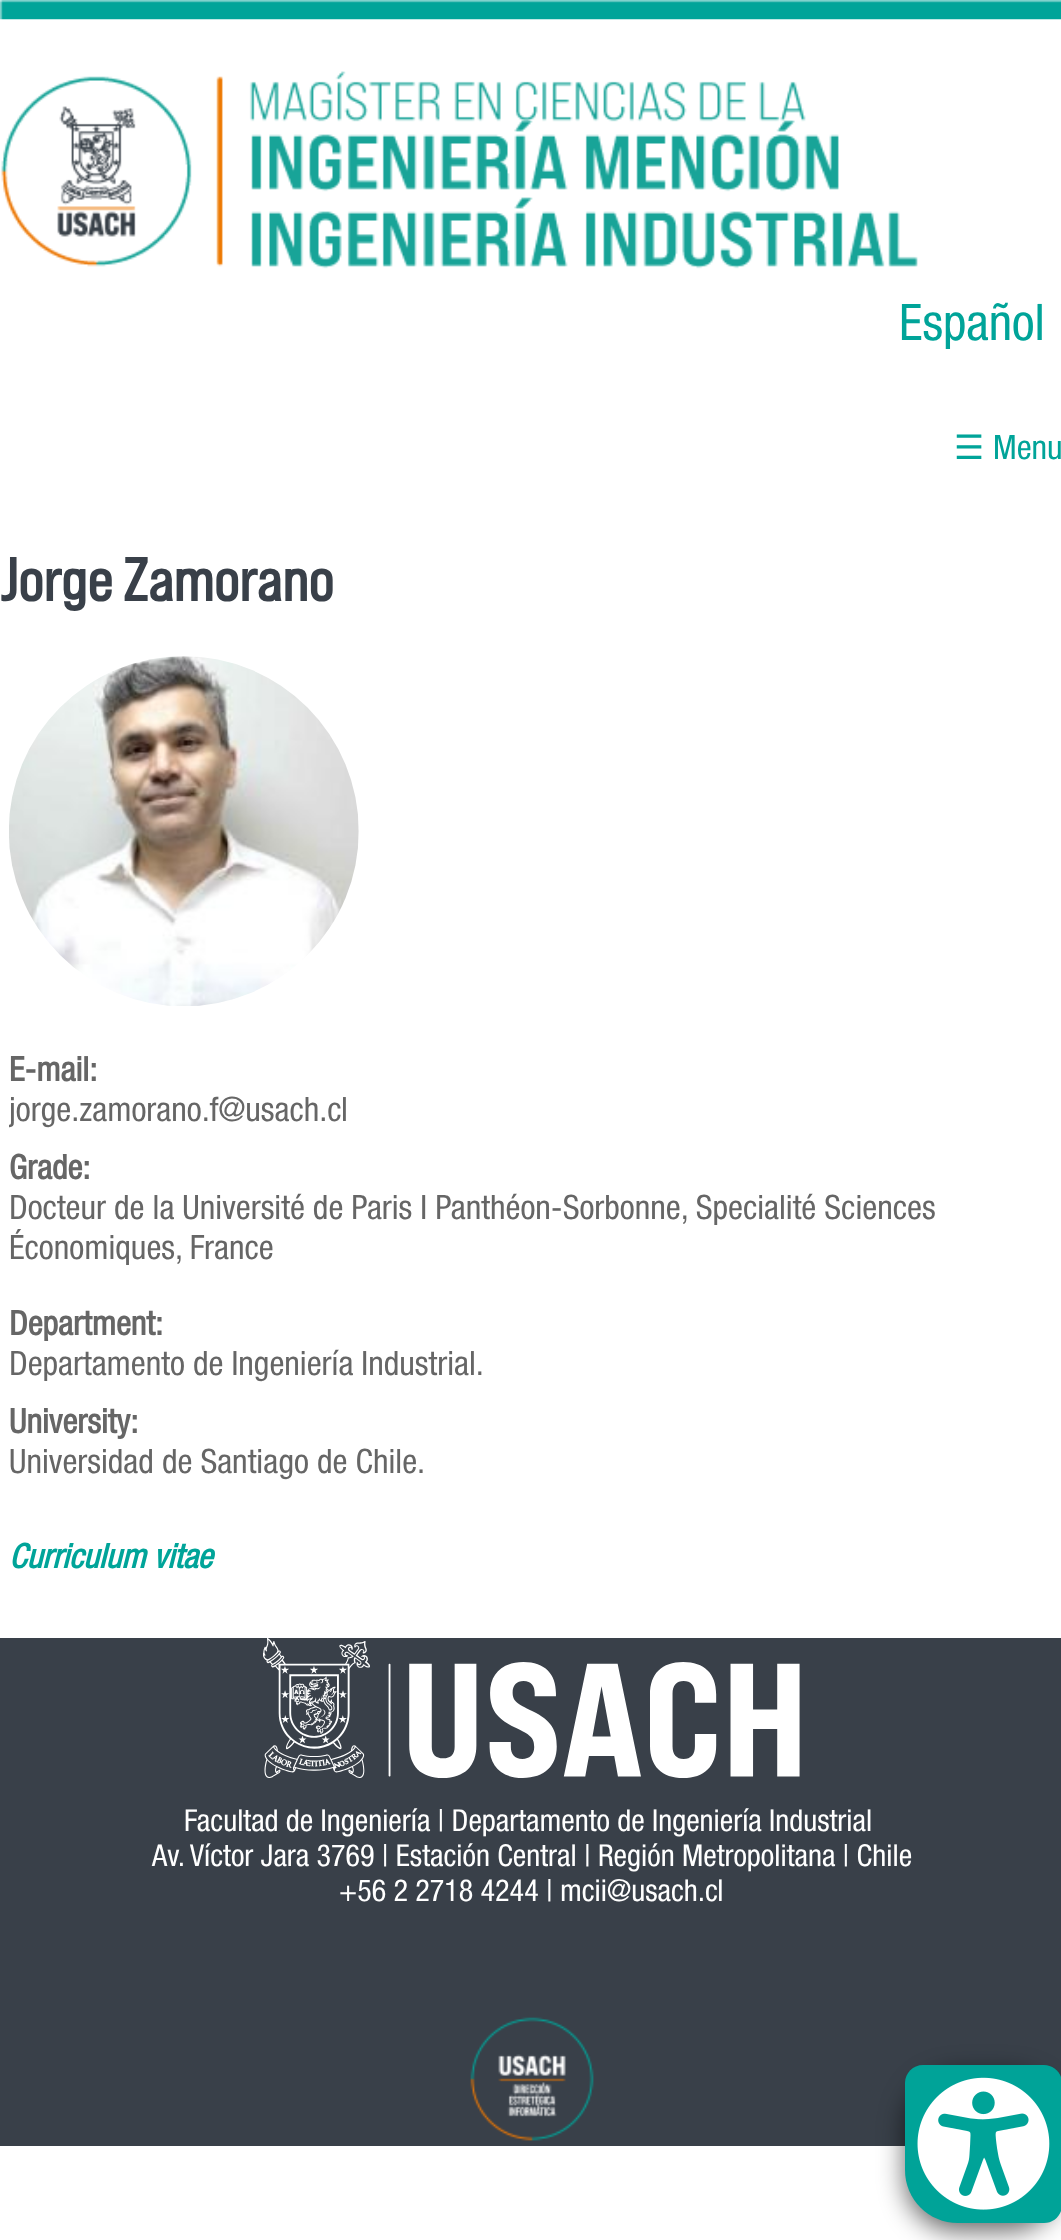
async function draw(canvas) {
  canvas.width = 1061
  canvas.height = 2240
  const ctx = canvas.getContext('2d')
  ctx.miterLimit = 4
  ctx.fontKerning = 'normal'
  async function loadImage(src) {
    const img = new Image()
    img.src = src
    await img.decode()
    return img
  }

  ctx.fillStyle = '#fff'
  ctx.fillRect(0, 0, 1061, 2240)
  ctx.drawImage(await loadImage('image0.png'), 0, 0, 1061, 20)
  ctx.drawImage(await loadImage('image1.png'), 1, 71, 917, 198)
  ctx.font = '50.5px Helvetica Neue'
  ctx.fillStyle = '#00a499'
  ctx.fillText('Español', 899, 340)
  ctx.font = '33.6px DejaVu Sans'
  ctx.fillText('☰', 954, 459)
  ctx.font = '33.6px Helvetica Neue'
  ctx.fillText('Menu', 993, 459)
  ctx.font = 'bold 60.5px Bebas Neue'
  ctx.fillStyle = '#394049'
  ctx.fillText('Jorge Zamorano', 0, 601)
  ctx.drawImage(await loadImage('image2.png'), 9, 656, 350, 350)
  ctx.font = 'bold 33.6px Helvetica Neue'
  ctx.fillStyle = '#666'
  ctx.fillText('E-mail:', 9, 1081)
  ctx.save()
  ctx.beginPath()
  ctx.rect(9, 656, 1045, 478)
  ctx.clip()
  ctx.font = '33.6px Helvetica Neue'
  ctx.fillText('jorge.zamorano.f@usach.cl', 9, 1121)
  ctx.restore()
  ctx.fillText('Grade:', 9, 1179)
  ctx.font = '33.6px Helvetica Neue'
  ctx.fillText('Docteur de la Université de Paris I Panthéon-Sorbonne, Specialité Sciences', 9, 1219)
  ctx.fillText('Économiques, France', 9, 1259)
  ctx.font = 'bold 33.6px Helvetica Neue'
  ctx.fillText('Department:', 9, 1335)
  ctx.font = '33.6px Helvetica Neue'
  ctx.fillText('Departamento de Ingeniería Industrial.', 9, 1375)
  ctx.font = 'bold 33.6px Helvetica Neue'
  ctx.fillText('University:', 9, 1433)
  ctx.font = '33.6px Helvetica Neue'
  ctx.fillText('Universidad de Santiago de Chile.', 9, 1473)
  ctx.font = 'italic bold 33.6px Helvetica Neue'
  ctx.fillStyle = '#00a499'
  ctx.fillText('Curriculum vitae', 9, 1568)
  ctx.fillStyle = '#394049'
  ctx.fillRect(0, 1638, 1061, 508)
  ctx.drawImage(await loadImage('image3.png'), 263, 1638, 537, 140)
  ctx.font = '30.25px Helvetica Neue'
  ctx.fillStyle = '#fff'
  ctx.fillText('Facultad de Ingeniería | Departamento de Ingeniería Industrial', 184, 1831)
  ctx.fillText('Av. Víctor Jara 3769 | Estación Central | Región Metropolitana | Chile', 152, 1866)
  ctx.fillText('+56 2 2718 4244 | mcii@usach.cl', 339, 1901)
  ctx.drawImage(await loadImage('image4.png'), 470, 2017, 124, 124)
  ctx.fillStyle = '#00000099'
  ctx.filter = 'blur(13px)'
  ctx.beginPath()
  ctx.roundRect(905, 2074, 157, 157, 53)
  ctx.fill()
  ctx.filter = 'none'
  ctx.fillStyle = '#00a398'
  ctx.beginPath()
  ctx.moveTo(923, 2065)
  ctx.lineTo(1044, 2065)
  ctx.bezierCurveTo(1054, 2065, 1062, 2073, 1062, 2083)
  ctx.lineTo(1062, 2205)
  ctx.bezierCurveTo(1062, 2215, 1054, 2223, 1044, 2223)
  ctx.lineTo(958, 2223)
  ctx.bezierCurveTo(928.5, 2223, 905, 2199.5, 905, 2170)
  ctx.lineTo(905, 2083)
  ctx.bezierCurveTo(905, 2073, 913, 2065, 923, 2065)
  ctx.closePath()
  ctx.fill()
  ctx.drawImage(await loadImage('image5.png'), 917, 2077, 133, 133)
}

draw(document.querySelector('canvas'))
